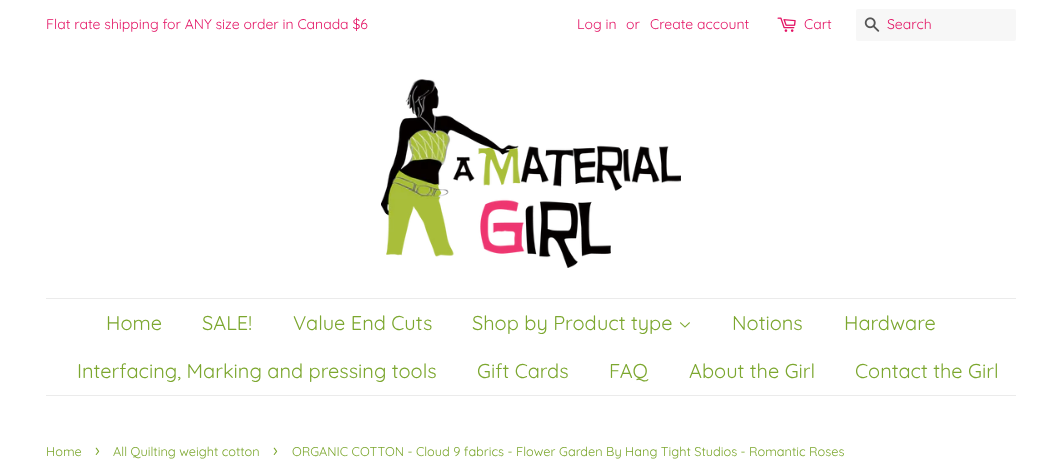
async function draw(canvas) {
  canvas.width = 1061
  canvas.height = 472
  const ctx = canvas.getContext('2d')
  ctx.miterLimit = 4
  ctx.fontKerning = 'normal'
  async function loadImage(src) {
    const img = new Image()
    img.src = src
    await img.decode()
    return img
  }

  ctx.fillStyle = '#fff'
  ctx.fillRect(0, 0, 1061, 472)
  ctx.font = '14px Quicksand'
  ctx.fillStyle = '#e31364'
  ctx.fillText('Flat rate shipping for ANY size order in Canada $6', 46, 29)
  ctx.fillText('Log in', 577, 29)
  ctx.fillText('or', 626, 29)
  ctx.fillText('Create account', 650, 29)
  ctx.drawImage(await loadImage('image0.png'), 777, 17, 19, 15)
  ctx.fillText('Cart', 804, 29)
  ctx.fillStyle = '#f7f7f7'
  ctx.beginPath()
  ctx.roundRect(856, 9, 160, 32, 2)
  ctx.fill()
  ctx.drawImage(await loadImage('image1.png'), 864, 17, 16, 15)
  ctx.fillStyle = '#e31364'
  ctx.fillText('Search', 887, 29)
  ctx.drawImage(await loadImage('image2.png'), 381, 79, 300, 189)
  ctx.fillStyle = '#ebebeb'
  ctx.fillRect(46, 298, 970, 1)
  ctx.fillRect(46, 395, 970, 1)
  ctx.font = '20px Quicksand'
  ctx.fillStyle = '#7ca72f'
  ctx.fillText('Home', 106, 330)
  ctx.fillText('SALE!', 202, 330)
  ctx.fillText('Value End Cuts', 293, 330)
  ctx.fillText('Shop by Product type', 472, 330)
  ctx.drawImage(await loadImage('image3.png'), 680, 322, 10, 6)
  ctx.fillText('Notions', 732, 330)
  ctx.fillText('Hardware', 844, 330)
  ctx.fillText('Interfacing, Marking and pressing tools', 77, 378)
  ctx.fillText('Gift Cards', 477, 378)
  ctx.fillText('FAQ', 609, 378)
  ctx.fillText('About the Girl', 689, 378)
  ctx.fillText('Contact the Girl', 855, 378)
  ctx.font = '12.75px Quicksand'
  ctx.fillText('Home', 46, 456)
  ctx.font = '18px Quicksand'
  ctx.fillText('›', 95, 456)
  ctx.font = '12.75px Quicksand'
  ctx.fillText('All Quilting weight cotton', 113, 456)
  ctx.font = '18px Quicksand'
  ctx.fillText('›', 273, 456)
  ctx.font = '12.75px Quicksand'
  ctx.fillText('ORGANIC COTTON - Cloud 9 fabrics - Flower Garden By Hang Tight Studios - Romantic Roses', 292, 456)
}

draw(document.querySelector('canvas'))
